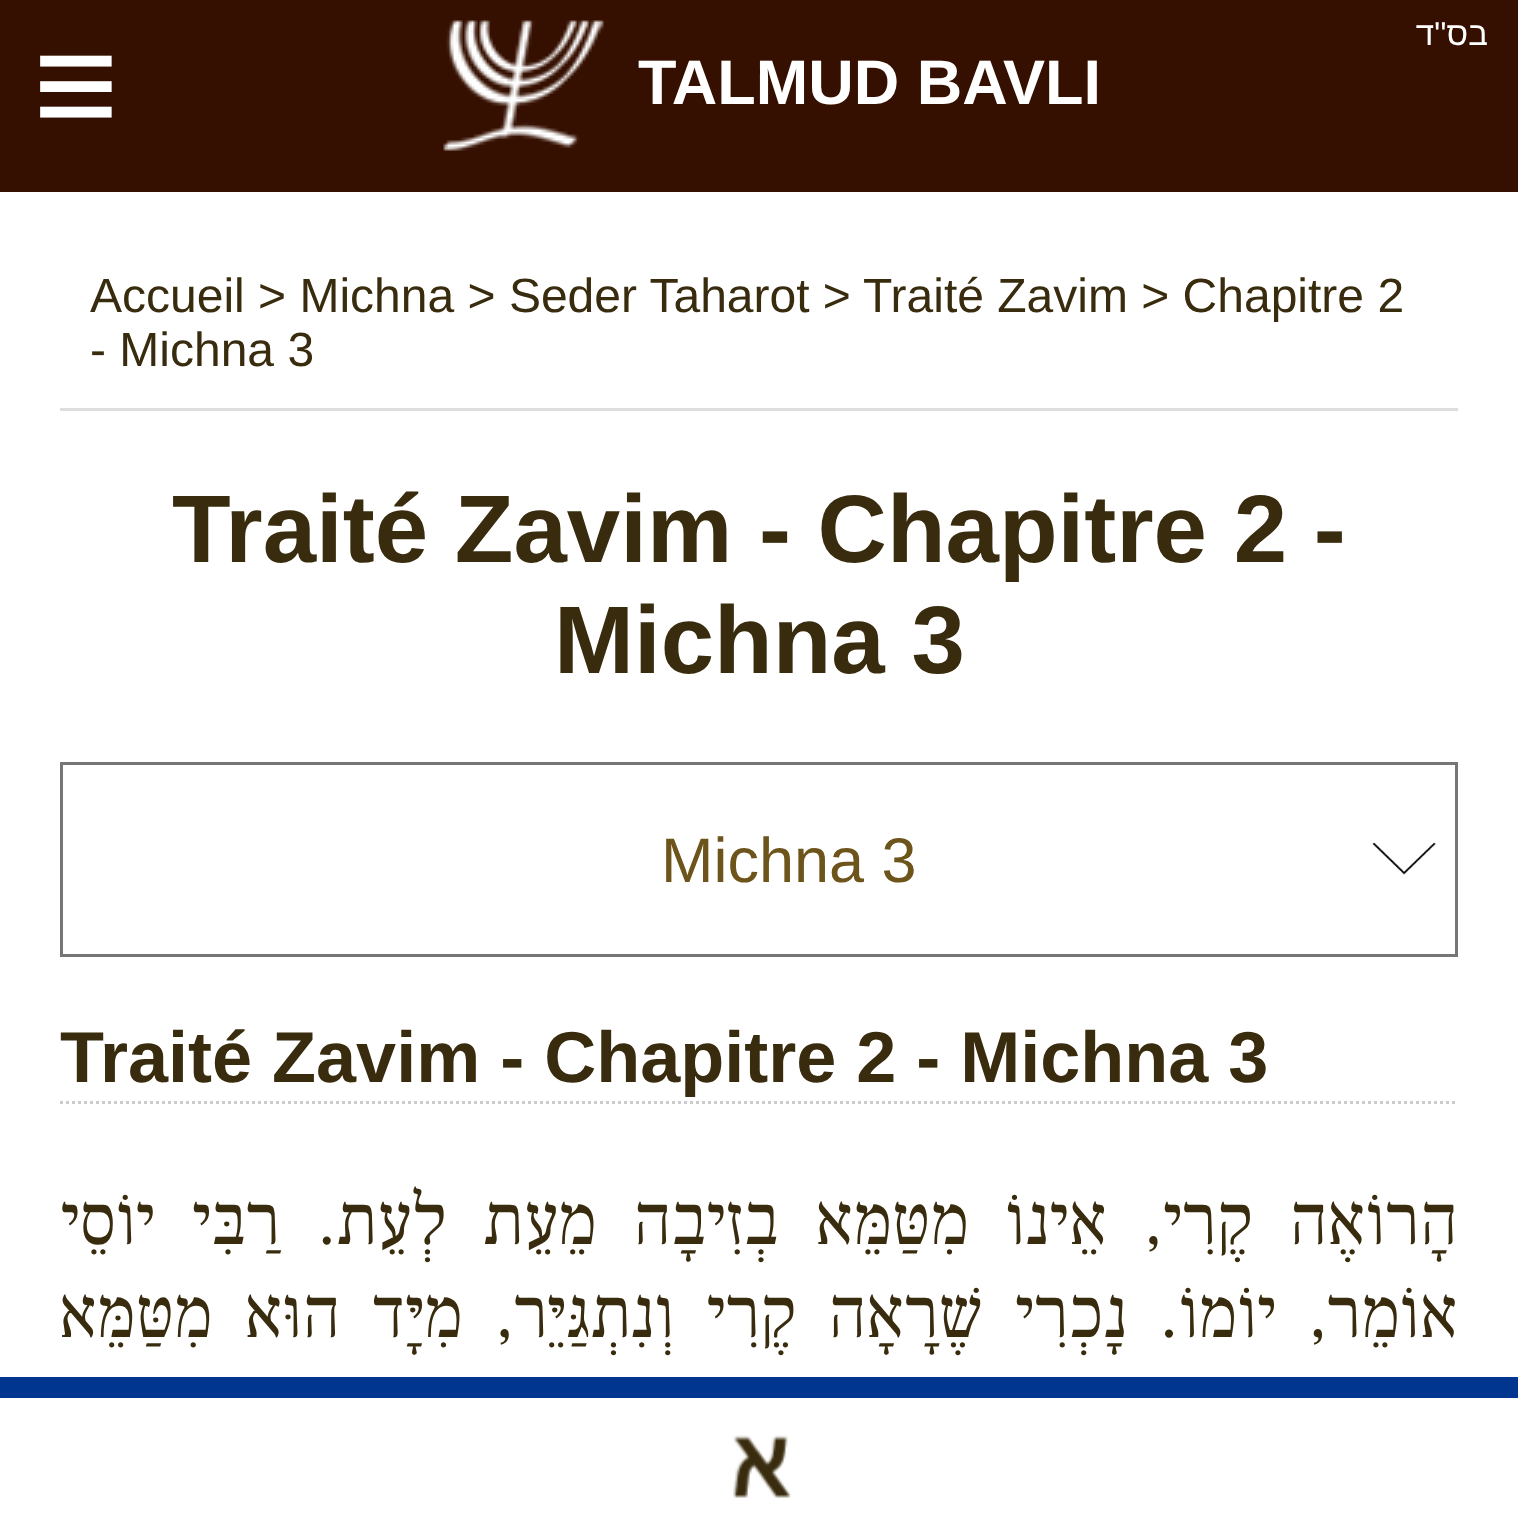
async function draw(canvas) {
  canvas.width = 1518
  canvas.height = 1535
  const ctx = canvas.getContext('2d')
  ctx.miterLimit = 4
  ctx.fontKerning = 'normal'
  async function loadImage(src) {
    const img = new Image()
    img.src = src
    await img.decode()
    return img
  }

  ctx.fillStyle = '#fff'
  ctx.fillRect(0, 0, 1518, 1535)
  ctx.fillStyle = '#351001'
  ctx.fillRect(0, 0, 1518, 192)
  ctx.direction = 'rtl'
  ctx.font = '33px Liberation Sans'
  ctx.fillStyle = '#fff'
  ctx.fillText('בס\'\'ד', 1488, 45)
  ctx.direction = 'ltr'
  ctx.font = '147px Liberation Sans'
  ctx.fillText('≡', 33, 135)
  ctx.drawImage(await loadImage('image0.png'), 443, 20, 161, 131)
  ctx.font = 'bold 63px Liberation Sans'
  ctx.fillText('TALMUD BAVLI', 638, 104)
  ctx.fillStyle = '#ddd'
  ctx.fillRect(60, 408, 1398, 3)
  ctx.font = '48px Liberation Sans'
  ctx.fillStyle = '#392c0e'
  ctx.fillText('Accueil > Michna > Seder Taharot >', 90, 312)
  ctx.fillText('Traité Zavim > Chapitre 2', 863, 312)
  ctx.fillText('- Michna 3', 90, 366)
  ctx.font = 'bold 96px Liberation Sans'
  ctx.fillText('Traité Zavim - Chapitre 2 -', 172, 562)
  ctx.fillText('Michna 3', 554, 673)
  ctx.drawImage(await loadImage('image1.png'), 1372, 842, 64, 33)
  ctx.strokeStyle = '#767676'
  ctx.lineWidth = 3
  ctx.strokeRect(61.5, 763.5, 1395, 192)
  ctx.font = '63px Liberation Sans'
  ctx.fillStyle = '#6c541a'
  ctx.fillText('Michna 3', 661, 882)
  ctx.beginPath()
  ctx.moveTo(60, 1102.5)
  ctx.lineTo(1458, 1102.5)
  ctx.strokeStyle = '#ccc'
  ctx.setLineDash([3, 3])
  ctx.stroke()
  ctx.font = 'bold 72px Liberation Sans'
  ctx.fillStyle = '#392c0e'
  ctx.fillText('Traité Zavim - Chapitre 2 - Michna 3', 60, 1082)
  ctx.wordSpacing = '19.25px'
  ctx.direction = 'rtl'
  ctx.font = '72px Frank Ruhl Libre'
  ctx.fillText('הָרוֹאֶה קֶרִי, אֵינוֹ מִטַּמֵּא בְזִיבָה מֵעֵת לְעֵת. רַבִּי יוֹסֵי', 1458, 1244)
  ctx.wordSpacing = '14.5px'
  ctx.fillText('אוֹמֵר, יוֹמוֹ. נָכְרִי שֶׁרָאָה קֶרִי וְנִתְגַּיֵּר, מִיָּד הוּא מִטַּמֵּא', 1458, 1337)
  ctx.fillStyle = '#003690'
  ctx.fillRect(0, 1377, 1518, 21)
  ctx.drawImage(await loadImage('image2.png'), 733, 1435, 59, 63)
}

draw(document.querySelector('canvas'))
